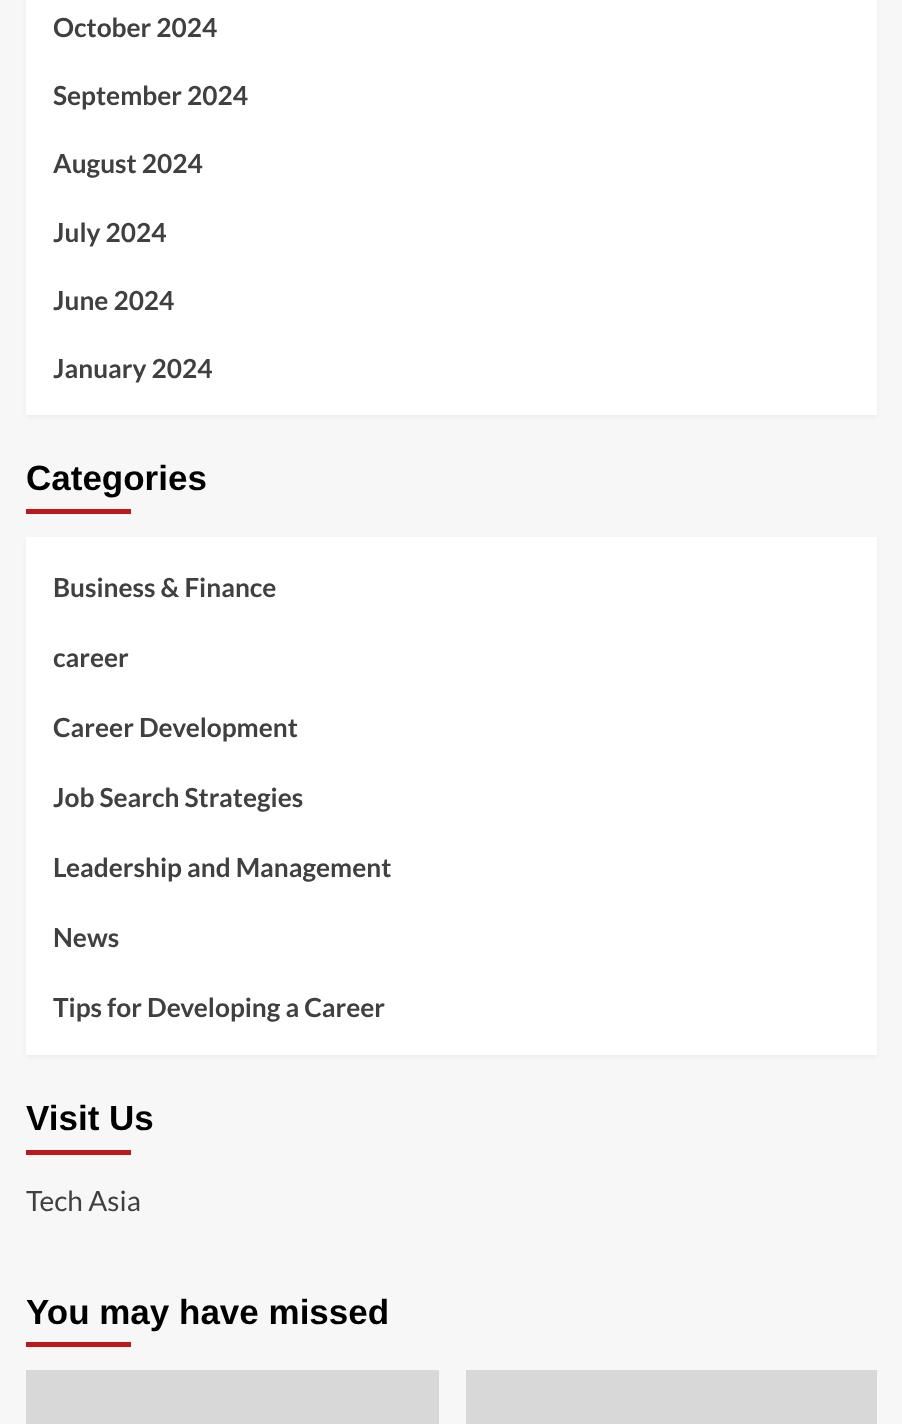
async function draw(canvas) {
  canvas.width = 902
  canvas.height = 1424
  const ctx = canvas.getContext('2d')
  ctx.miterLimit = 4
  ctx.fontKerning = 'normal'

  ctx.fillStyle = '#f7f7f7'
  ctx.fillRect(0, 0, 902, 1424)
  ctx.fillStyle = '#0000000d'
  ctx.filter = 'blur(2px)'
  ctx.beginPath()
  ctx.rect(26, -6, 851, 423)
  ctx.fill()
  ctx.filter = 'none'
  ctx.fillStyle = '#fff'
  ctx.fillRect(26, 0, 851, 415)
  ctx.font = 'bold 26.25px Lato'
  ctx.fillStyle = '#404040'
  ctx.fillText('October 2024', 53, 37)
  ctx.fillText('September 2024', 53, 105)
  ctx.fillText('August 2024', 53, 173)
  ctx.fillText('July 2024', 53, 242)
  ctx.fillText('June 2024', 53, 310)
  ctx.fillText('January 2024', 53, 378)
  ctx.font = 'bold 35px Liberation Sans'
  ctx.fillStyle = '#000'
  ctx.fillText('Categories', 26, 490)
  ctx.fillStyle = '#bb1919'
  ctx.fillRect(26, 509, 105, 5)
  ctx.fillStyle = '#0000000d'
  ctx.filter = 'blur(2px)'
  ctx.beginPath()
  ctx.rect(26, 539, 851, 518)
  ctx.fill()
  ctx.filter = 'none'
  ctx.fillStyle = '#fff'
  ctx.fillRect(26, 537, 851, 518)
  ctx.font = 'bold 26.25px Lato'
  ctx.fillStyle = '#404040'
  ctx.fillText('Business & Finance', 53, 597)
  ctx.fillText('career', 53, 667)
  ctx.fillText('Career Development', 53, 737)
  ctx.fillText('Job Search Strategies', 53, 807)
  ctx.fillText('Leadership and Management', 53, 877)
  ctx.fillText('News', 53, 947)
  ctx.fillText('Tips for Developing a Career', 53, 1017)
  ctx.font = 'bold 35px Liberation Sans'
  ctx.fillStyle = '#000'
  ctx.fillText('Visit Us', 26, 1130)
  ctx.fillStyle = '#bb1919'
  ctx.fillRect(26, 1150, 105, 5)
  ctx.font = '28px Lato'
  ctx.fillStyle = '#404040'
  ctx.fillText('Tech Asia', 26, 1211)
  ctx.font = 'bold 35px Liberation Sans'
  ctx.fillStyle = '#000'
  ctx.fillText('You may have missed', 26, 1324)
  ctx.fillStyle = '#bb1919'
  ctx.fillRect(26, 1342, 105, 5)
  ctx.fillStyle = '#d8d8d8'
  ctx.fillRect(26, 1370, 413, 54)
  ctx.fillRect(466, 1370, 411, 54)
}

draw(document.querySelector('canvas'))
